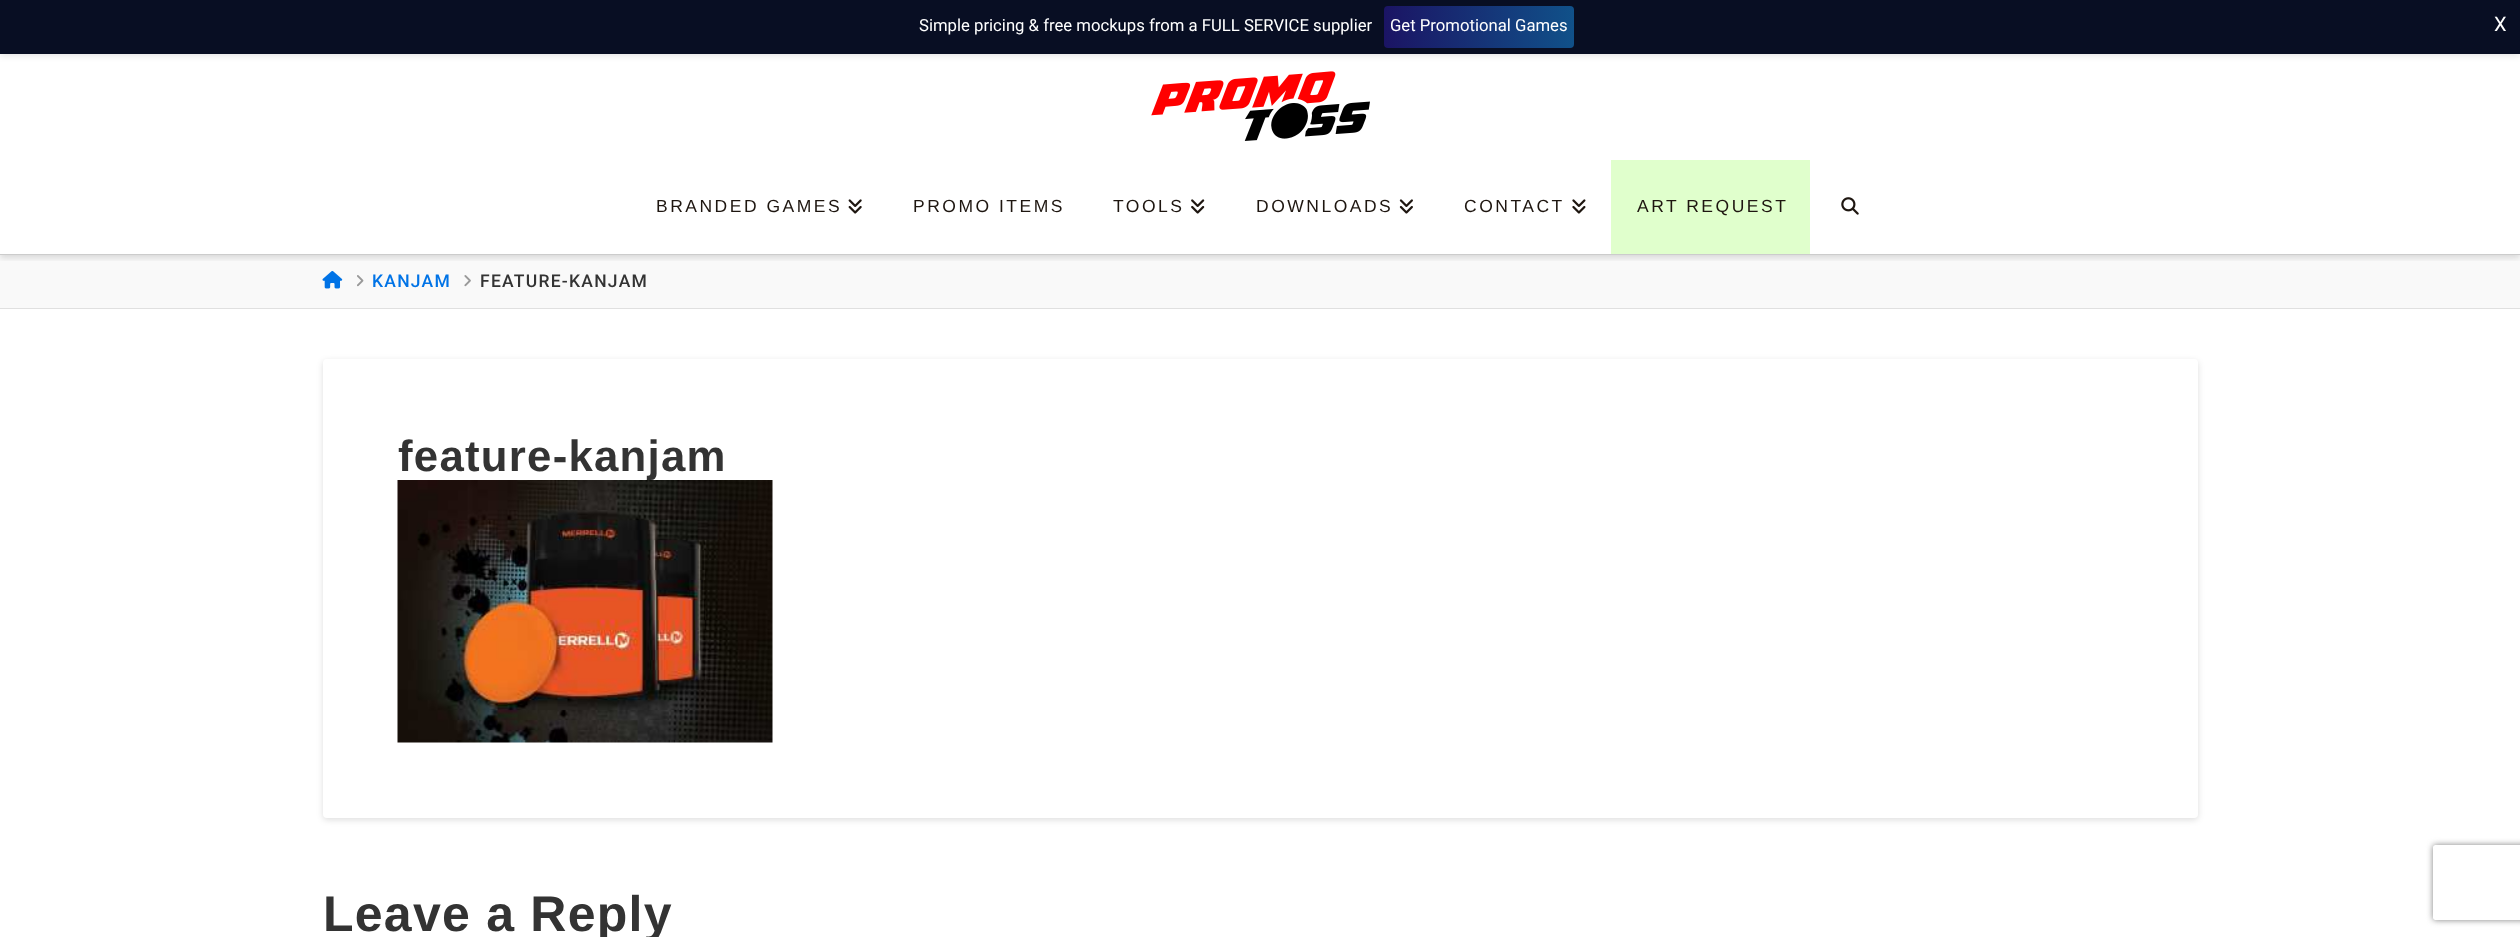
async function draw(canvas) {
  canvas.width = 2520
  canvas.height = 937
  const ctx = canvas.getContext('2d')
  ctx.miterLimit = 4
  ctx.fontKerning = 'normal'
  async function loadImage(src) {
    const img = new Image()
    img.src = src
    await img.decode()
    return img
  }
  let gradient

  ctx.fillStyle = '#fff'
  ctx.fillRect(0, 0, 2520, 937)
  ctx.fillStyle = '#0000001a'
  ctx.filter = 'blur(3px)'
  ctx.beginPath()
  ctx.rect(0, 3, 2520, 53)
  ctx.fill()
  ctx.filter = 'none'
  ctx.fillStyle = '#080e23'
  ctx.fillRect(0, 0, 2520, 54)
  ctx.font = '16.7px Roboto'
  ctx.fillStyle = '#fff'
  ctx.fillText('Simple pricing & free mockups from a FULL SERVICE supplier', 919, 31)
  gradient = ctx.createLinearGradient(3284, 212, 1384, 213)
  gradient.addColorStop(0, '#1b1464')
  gradient.addColorStop(0.25, '#3f51b5')
  gradient.addColorStop(0.5, '#8e24aa')
  gradient.addColorStop(0.75, '#00acc1')
  gradient.addColorStop(1, '#1b1464')
  ctx.fillStyle = gradient
  ctx.beginPath()
  ctx.roundRect(1384, 6, 190, 42, 4)
  ctx.fill()
  ctx.fillStyle = '#fff'
  ctx.fillText('Get Promotional Games', 1390, 31)
  ctx.font = '20px Roboto'
  ctx.fillText('X', 2494, 31)
  ctx.drawImage(await loadImage('image0.png'), 1151, 71, 219, 70)
  ctx.fillStyle = '#f9f9f9'
  ctx.fillRect(0, 255, 2520, 53)
  ctx.save()
  ctx.beginPath()
  ctx.rect(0, 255, 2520, 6)
  ctx.clip()
  ctx.fillStyle = '#00000021'
  ctx.filter = 'blur(3px)'
  ctx.beginPath()
  ctx.rect(0, 163, 2520, 95)
  ctx.fill()
  ctx.filter = 'none'
  ctx.restore()
  ctx.fillStyle = '#ccc'
  ctx.fillRect(0, 254, 2520, 1)
  ctx.letterSpacing = '2.5px'
  ctx.font = '17.5px Liberation Sans'
  ctx.fillStyle = '#1e1610'
  ctx.fillText('BRANDED GAMES', 656, 212)
  ctx.drawImage(await loadImage('image1.png'), 848, 199, 14, 15)
  ctx.fillText('PROMO ITEMS', 913, 212)
  ctx.fillText('TOOLS', 1113, 212)
  ctx.drawImage(await loadImage('image2.png'), 1191, 199, 14, 15)
  ctx.fillText('DOWNLOADS', 1256, 212)
  ctx.drawImage(await loadImage('image3.png'), 1399, 199, 14, 15)
  ctx.fillText('CONTACT', 1464, 212)
  ctx.drawImage(await loadImage('image4.png'), 1572, 199, 14, 15)
  ctx.fillStyle = '#e0ffcc'
  ctx.fillRect(1611, 160, 199, 94)
  ctx.fillStyle = '#1e1610'
  ctx.fillText('ART REQUEST', 1637, 212)
  ctx.drawImage(await loadImage('image5.png'), 1841, 197, 18, 18)
  ctx.fillStyle = '#e0e0e0'
  ctx.fillRect(0, 308, 2520, 1)
  ctx.drawImage(await loadImage('image6.png'), 322, 271, 21, 18)
  ctx.drawImage(await loadImage('image7.png'), 357, 275, 7, 12)
  ctx.letterSpacing = '1.25px'
  ctx.font = '500 17.5px Roboto'
  ctx.fillStyle = '#0073e6'
  ctx.fillText('KANJAM', 372, 287)
  ctx.drawImage(await loadImage('image8.png'), 464, 275, 7, 12)
  ctx.fillStyle = '#333'
  ctx.fillText('FEATURE-KANJAM', 480, 287)
  ctx.fillStyle = '#00000021'
  ctx.filter = 'blur(3px)'
  ctx.beginPath()
  ctx.roundRect(323, 361, 1875, 459, 4)
  ctx.fill()
  ctx.filter = 'none'
  ctx.fillStyle = '#fff'
  ctx.beginPath()
  ctx.roundRect(323, 359, 1875, 459, 4)
  ctx.fill()
  ctx.font = 'bold 43.75px Liberation Sans'
  ctx.fillStyle = '#333'
  ctx.fillText('feature-kanjam', 398, 471)
  ctx.drawImage(await loadImage('image9.png'), 397, 480, 376, 263)
  ctx.font = 'bold 50px Liberation Sans'
  ctx.fillText('Leave a Reply', 323, 931)
  ctx.save()
  ctx.beginPath()
  ctx.moveTo(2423, 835)
  ctx.lineTo(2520, 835)
  ctx.lineTo(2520, 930)
  ctx.lineTo(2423, 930)
  ctx.closePath()
  ctx.moveTo(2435.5, 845)
  ctx.lineTo(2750.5, 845)
  ctx.bezierCurveTo(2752, 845, 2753, 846, 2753, 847.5)
  ctx.lineTo(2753, 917.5)
  ctx.bezierCurveTo(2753, 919, 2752, 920, 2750.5, 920)
  ctx.lineTo(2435.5, 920)
  ctx.bezierCurveTo(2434, 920, 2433, 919, 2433, 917.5)
  ctx.lineTo(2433, 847.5)
  ctx.bezierCurveTo(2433, 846, 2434, 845, 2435.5, 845)
  ctx.closePath()
  ctx.clip('evenodd')
  ctx.fillStyle = '#808080'
  ctx.filter = 'blur(3px)'
  ctx.beginPath()
  ctx.roundRect(2433, 845, 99, 75, 2.5)
  ctx.fill()
  ctx.filter = 'none'
  ctx.restore()
}

draw(document.querySelector('canvas'))
